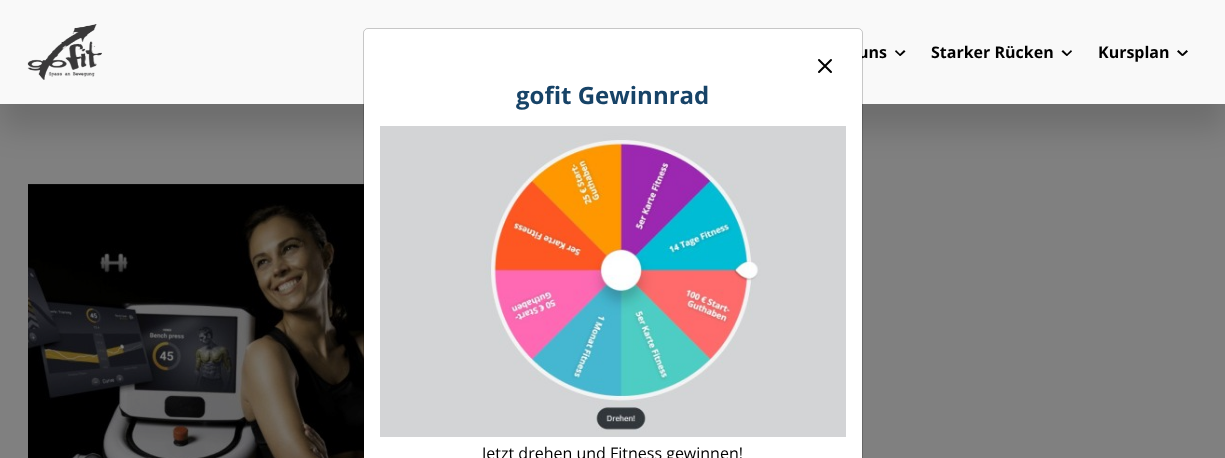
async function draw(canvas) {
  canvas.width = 1225
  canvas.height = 458
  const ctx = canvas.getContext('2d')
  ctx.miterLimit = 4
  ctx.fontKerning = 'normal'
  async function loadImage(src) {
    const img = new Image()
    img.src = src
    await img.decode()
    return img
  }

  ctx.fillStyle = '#808080'
  ctx.fillRect(0, 0, 1225, 458)
  ctx.fillStyle = '#00000026'
  ctx.filter = 'blur(15px)'
  ctx.beginPath()
  ctx.rect(0, 25, 1225, 104)
  ctx.fill()
  ctx.filter = 'none'
  ctx.fillStyle = '#f9f9f9'
  ctx.fillRect(0, 0, 1225, 104)
  ctx.drawImage(await loadImage('image0.png'), 27, 24, 75, 56)
  ctx.font = 'bold 16px Open Sans'
  ctx.fillStyle = '#000'
  ctx.fillText('uns', 858, 58)
  ctx.beginPath()
  ctx.moveTo(905.5, 51.5)
  ctx.lineTo(900.5, 56)
  ctx.lineTo(899, 55)
  ctx.lineTo(904, 50)
  ctx.closePath()
  ctx.fill()
  ctx.beginPath()
  ctx.moveTo(901, 55)
  ctx.lineTo(900, 56)
  ctx.lineTo(895, 51.5)
  ctx.lineTo(896, 50)
  ctx.closePath()
  ctx.fill()
  ctx.fillText('Starker Rücken', 931, 58)
  ctx.beginPath()
  ctx.moveTo(1072, 51.5)
  ctx.lineTo(1067, 56)
  ctx.lineTo(1066, 55)
  ctx.lineTo(1071, 50)
  ctx.closePath()
  ctx.fill()
  ctx.beginPath()
  ctx.moveTo(1068, 55)
  ctx.lineTo(1066.5, 56)
  ctx.lineTo(1061.5, 51.5)
  ctx.lineTo(1063, 50)
  ctx.closePath()
  ctx.fill()
  ctx.fillText('Kursplan', 1098, 58)
  ctx.beginPath()
  ctx.moveTo(1188, 51.5)
  ctx.lineTo(1183, 56)
  ctx.lineTo(1181.5, 55)
  ctx.lineTo(1186.5, 50)
  ctx.closePath()
  ctx.fill()
  ctx.beginPath()
  ctx.moveTo(1183.5, 55)
  ctx.lineTo(1182, 56)
  ctx.lineTo(1177, 51.5)
  ctx.lineTo(1178.5, 50)
  ctx.closePath()
  ctx.fill()
  ctx.drawImage(await loadImage('image1.png'), 28, 184, 336, 274)
  ctx.fillStyle = '#fff'
  ctx.beginPath()
  ctx.roundRect(364, 29, 498, 429, [4, 4, 0, 0])
  ctx.fill()
  ctx.beginPath()
  ctx.roundRect(363.5, 28.5, 499, 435, 4.5)
  ctx.strokeStyle = '#00000033'
  ctx.stroke()
  ctx.beginPath()
  ctx.moveTo(819, 72)
  ctx.lineTo(831, 60)
  ctx.moveTo(819, 60)
  ctx.lineTo(831, 72)
  ctx.strokeStyle = '#000'
  ctx.lineWidth = 2
  ctx.lineCap = 'round'
  ctx.lineJoin = 'round'
  ctx.stroke()
  ctx.font = 'bold 24px Open Sans'
  ctx.fillStyle = '#174367'
  ctx.fillText('gofit Gewinnrad', 516, 104)
  ctx.drawImage(await loadImage('image2.png'), 380, 126, 466, 311)
  ctx.font = '16px Open Sans'
  ctx.fillStyle = '#000'
  ctx.fillText('Jetzt drehen und Fitness gewinnen!', 482, 459)
}

draw(document.querySelector('canvas'))
